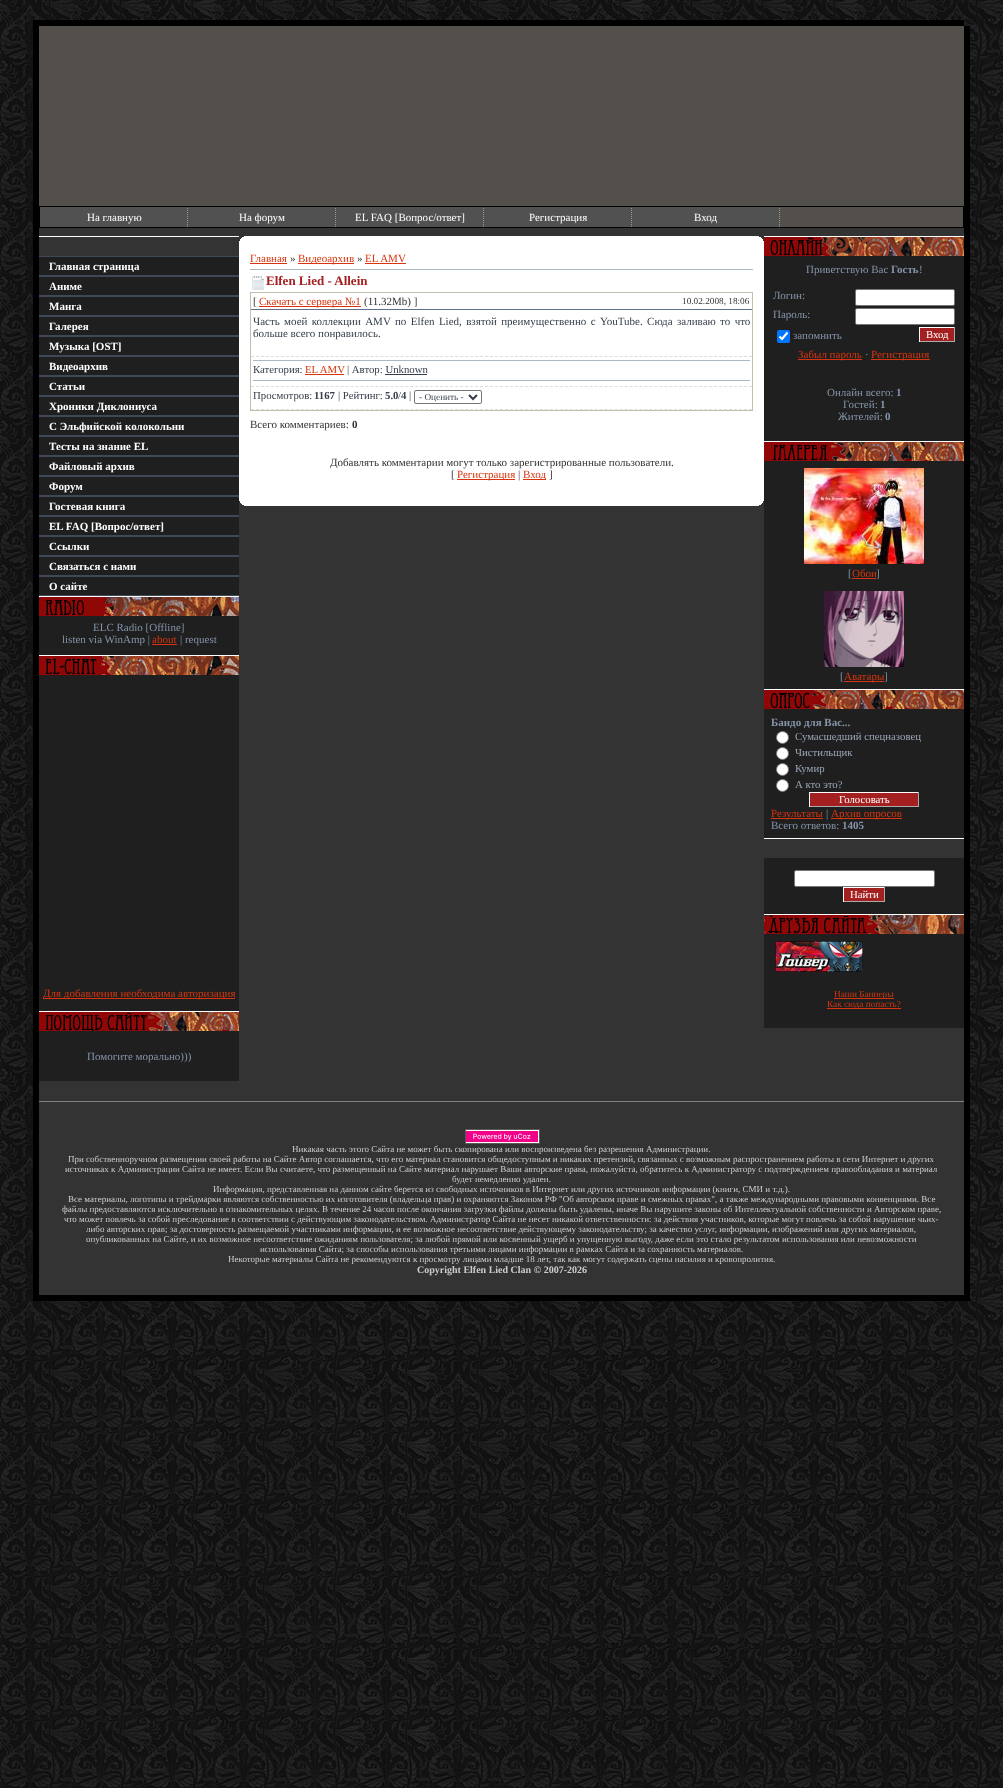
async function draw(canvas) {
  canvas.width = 1003
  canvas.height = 1788
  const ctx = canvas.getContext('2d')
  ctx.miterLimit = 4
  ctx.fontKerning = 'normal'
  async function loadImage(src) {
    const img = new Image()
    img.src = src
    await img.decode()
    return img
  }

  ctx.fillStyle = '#fff'
  ctx.fillRect(0, 0, 1003, 1788)
  ctx.drawImage(await loadImage('image0.png'), 0, 0, 1003, 1788)
  ctx.fillStyle = '#000'
  ctx.fillRect(39, 20, 925, 6)
  ctx.fillRect(33, 20, 6, 1275)
  ctx.fillStyle = '#333'
  ctx.fillRect(39, 228, 925, 1067)
  ctx.fillStyle = '#534f4a'
  ctx.fillRect(39, 26, 925, 180)
  ctx.fillRect(780, 207, 183, 20)
  ctx.strokeStyle = '#000'
  ctx.strokeRect(39.5, 206.5, 924, 21)
  ctx.fillStyle = '#515151'
  ctx.fillRect(40, 207, 740, 20)
  ctx.drawImage(await loadImage('image1.png'), 187, 208, 1, 19)
  ctx.font = '11px Liberation Serif'
  ctx.fillStyle = '#fff'
  ctx.fillText('На главную', 87, 221)
  ctx.drawImage(await loadImage('image1.png'), 335, 208, 1, 19)
  ctx.fillText('На форум', 239, 221)
  ctx.drawImage(await loadImage('image1.png'), 483, 208, 1, 19)
  ctx.fillText('EL FAQ [Вопрос/ответ]', 355, 221)
  ctx.drawImage(await loadImage('image1.png'), 631, 208, 1, 19)
  ctx.fillText('Регистрация', 529, 221)
  ctx.drawImage(await loadImage('image1.png'), 779, 208, 1, 19)
  ctx.fillText('Вход', 694, 221)
  ctx.fillRect(39, 236, 200, 1)
  ctx.fillStyle = '#1f1f1f'
  ctx.fillRect(39, 257, 200, 338)
  ctx.fillStyle = '#3e4857'
  ctx.fillRect(39, 256, 200, 1)
  ctx.fillRect(39, 275, 200, 2)
  ctx.font = 'bold 11px Liberation Serif'
  ctx.fillStyle = '#fff'
  ctx.fillText('Главная страница', 49, 270)
  ctx.fillStyle = '#3e4857'
  ctx.fillRect(39, 295, 200, 2)
  ctx.fillStyle = '#fff'
  ctx.fillText('Аниме', 49, 290)
  ctx.fillStyle = '#3e4857'
  ctx.fillRect(39, 315, 200, 2)
  ctx.fillStyle = '#fff'
  ctx.fillText('Манга', 49, 310)
  ctx.fillStyle = '#3e4857'
  ctx.fillRect(39, 335, 200, 2)
  ctx.fillStyle = '#fff'
  ctx.fillText('Галерея', 49, 330)
  ctx.fillStyle = '#3e4857'
  ctx.fillRect(39, 355, 200, 2)
  ctx.fillStyle = '#fff'
  ctx.fillText('Музыка [OST]', 49, 350)
  ctx.fillStyle = '#3e4857'
  ctx.fillRect(39, 375, 200, 2)
  ctx.fillStyle = '#fff'
  ctx.fillText('Видеоархив', 49, 370)
  ctx.fillStyle = '#3e4857'
  ctx.fillRect(39, 395, 200, 2)
  ctx.fillStyle = '#fff'
  ctx.fillText('Статьи', 49, 390)
  ctx.fillStyle = '#3e4857'
  ctx.fillRect(39, 415, 200, 2)
  ctx.fillStyle = '#fff'
  ctx.fillText('Хроники Диклониуса', 49, 410)
  ctx.fillStyle = '#3e4857'
  ctx.fillRect(39, 435, 200, 2)
  ctx.fillStyle = '#fff'
  ctx.fillText('С Эльфийской колокольни', 49, 430)
  ctx.fillStyle = '#3e4857'
  ctx.fillRect(39, 455, 200, 2)
  ctx.fillStyle = '#fff'
  ctx.fillText('Тесты на знание EL', 49, 450)
  ctx.fillStyle = '#3e4857'
  ctx.fillRect(39, 475, 200, 2)
  ctx.fillStyle = '#fff'
  ctx.fillText('Файловый архив', 49, 470)
  ctx.fillStyle = '#3e4857'
  ctx.fillRect(39, 495, 200, 2)
  ctx.fillStyle = '#fff'
  ctx.fillText('Форум', 49, 490)
  ctx.fillStyle = '#3e4857'
  ctx.fillRect(39, 515, 200, 2)
  ctx.fillStyle = '#fff'
  ctx.fillText('Гостевая книга', 49, 510)
  ctx.fillStyle = '#3e4857'
  ctx.fillRect(39, 535, 200, 2)
  ctx.fillStyle = '#fff'
  ctx.fillText('EL FAQ [Вопрос/ответ]', 49, 530)
  ctx.fillStyle = '#3e4857'
  ctx.fillRect(39, 555, 200, 2)
  ctx.fillStyle = '#fff'
  ctx.fillText('Ссылки', 49, 550)
  ctx.fillStyle = '#3e4857'
  ctx.fillRect(39, 575, 200, 2)
  ctx.fillStyle = '#fff'
  ctx.fillText('Связаться с нами', 49, 570)
  ctx.fillStyle = '#3e4857'
  ctx.fillRect(39, 595, 200, 1)
  ctx.fillStyle = '#fff'
  ctx.fillText('О сайте', 49, 590)
  ctx.drawImage(await loadImage('image2.png'), 39, 597, 200, 19)
  ctx.fillRect(39, 596, 200, 1)
  ctx.fillStyle = '#1f1f1f'
  ctx.fillRect(39, 616, 200, 39)
  ctx.font = '11px Liberation Serif'
  ctx.fillStyle = '#8594a9'
  ctx.fillText('ELC Radio [Offline]', 93, 631)
  ctx.fillText('listen via WinAmp |', 62, 643)
  ctx.fillStyle = '#d7350f'
  ctx.fillText('about', 152, 643)
  ctx.fillRect(152, 644, 25, 1)
  ctx.fillStyle = '#8594a9'
  ctx.fillText('| request', 180, 643)
  ctx.drawImage(await loadImage('image3.png'), 39, 656, 200, 19)
  ctx.fillStyle = '#fff'
  ctx.fillRect(39, 655, 200, 1)
  ctx.fillStyle = '#1f1f1f'
  ctx.fillRect(39, 675, 200, 336)
  ctx.fillStyle = '#d7350f'
  ctx.fillRect(43, 998, 192, 1)
  ctx.fillText('Для добавления необходима авторизация', 43, 997)
  ctx.drawImage(await loadImage('image4.png'), 39, 1012, 200, 19)
  ctx.fillStyle = '#fff'
  ctx.fillRect(39, 1011, 200, 1)
  ctx.fillStyle = '#1f1f1f'
  ctx.fillRect(39, 1031, 200, 50)
  ctx.fillStyle = '#8594a9'
  ctx.fillText('Помогите морально)))', 87, 1060)
  ctx.fillStyle = '#fff'
  ctx.fillRect(244, 236, 515, 1)
  ctx.fillRect(242, 237, 519, 1)
  ctx.fillRect(241, 238, 521, 1)
  ctx.fillRect(240, 239, 523, 2)
  ctx.fillRect(239, 241, 525, 260)
  ctx.fillStyle = '#a9b8c2'
  ctx.fillRect(250, 269, 503, 1)
  ctx.fillStyle = '#d7350f'
  ctx.fillText('Главная', 250, 262)
  ctx.fillRect(250, 263, 37, 1)
  ctx.fillStyle = '#333'
  ctx.fillText('»', 290, 262)
  ctx.fillStyle = '#d7350f'
  ctx.fillRect(298, 263, 56, 1)
  ctx.fillText('Видеоархив', 298, 262)
  ctx.fillStyle = '#333'
  ctx.fillText('»', 357, 262)
  ctx.fillStyle = '#d7350f'
  ctx.fillText('EL AMV', 365, 262)
  ctx.fillRect(365, 263, 41, 1)
  ctx.drawImage(await loadImage('image5.png'), 252, 276, 12, 14)
  ctx.font = 'bold 13px Liberation Serif'
  ctx.fillStyle = '#a42020'
  ctx.fillText('Elfen Lied - Allein', 266, 285)
  ctx.strokeStyle = '#bfc2ab'
  ctx.strokeRect(250.5, 292.5, 502, 118)
  ctx.font = '11px Liberation Serif'
  ctx.fillStyle = '#333'
  ctx.fillText('[', 253, 305)
  ctx.fillStyle = '#d7350f'
  ctx.fillRect(259, 306, 102, 1)
  ctx.fillText('Скачать с сервера №1', 259, 305)
  ctx.fillStyle = '#333'
  ctx.fillText('(11.32Mb) ]', 364, 305)
  ctx.font = '9.25px Liberation Serif'
  ctx.fillText('10.02.2008, 18:06', 682, 304)
  ctx.fillStyle = '#5f6f87'
  ctx.fillRect(251, 309, 501, 1)
  ctx.wordSpacing = '1.6px'
  ctx.font = '11px Liberation Serif'
  ctx.fillStyle = '#353e4a'
  ctx.fillText('Часть моей коллекции AMV по Elfen Lied, взятой преимущественно с YouTube. Сюда заливаю то что', 253, 325)
  ctx.wordSpacing = '0px'
  ctx.fillText('больше всего понравилось.', 253, 337)
  ctx.beginPath()
  ctx.moveTo(251, 356.5)
  ctx.lineTo(752, 356.5)
  ctx.strokeStyle = '#ddd'
  ctx.setLineDash([3, 1.98])
  ctx.stroke()
  ctx.beginPath()
  ctx.moveTo(251, 386.5)
  ctx.lineTo(752, 386.5)
  ctx.stroke()
  ctx.fillStyle = '#a9b8c2'
  ctx.fillRect(253, 360, 497, 1)
  ctx.fillRect(253, 380, 497, 1)
  ctx.font = '10.75px Liberation Serif'
  ctx.fillStyle = '#353e4a'
  ctx.fillText('Категория:', 253, 373)
  ctx.fillStyle = '#d7350f'
  ctx.fillText('EL AMV', 305, 373)
  ctx.fillRect(305, 374, 39, 1)
  ctx.fillStyle = '#353e4a'
  ctx.fillText('| Автор: Unknown', 347, 373)
  ctx.fillRect(385, 374, 42, 1)
  ctx.beginPath()
  ctx.moveTo(251, 409.5)
  ctx.lineTo(752, 409.5)
  ctx.stroke()
  ctx.fillText('Просмотров:', 253, 399)
  ctx.font = 'bold 10.75px Liberation Serif'
  ctx.fillText('1167', 314, 399)
  ctx.font = '10.75px Liberation Serif'
  ctx.fillText('| Рейтинг:', 338, 399)
  ctx.font = 'bold 10.75px Liberation Serif'
  ctx.fillText('5.0', 385, 399)
  ctx.font = '10.75px Liberation Serif'
  ctx.fillText('/', 398, 399)
  ctx.font = 'bold 10.75px Liberation Serif'
  ctx.fillText('4', 401, 399)
  ctx.font = '10.75px Liberation Serif'
  ctx.fillText('|', 409, 399)
  ctx.beginPath()
  ctx.roundRect(414.5, 390.5, 67, 13, 1.5)
  ctx.strokeStyle = '#767676'
  ctx.setLineDash([])
  ctx.stroke()
  ctx.beginPath()
  ctx.moveTo(469, 395)
  ctx.lineTo(473, 399)
  ctx.lineTo(477, 395)
  ctx.strokeStyle = '#353e4a'
  ctx.lineWidth = 2
  ctx.stroke()
  ctx.font = '9.25px Liberation Serif'
  ctx.fillText('- Оценить -', 419, 400)
  ctx.font = '11px Liberation Serif'
  ctx.fillStyle = '#333'
  ctx.fillText('Всего комментариев:', 250, 428)
  ctx.font = 'bold 11px Liberation Serif'
  ctx.fillText('0', 352, 428)
  ctx.font = '11px Liberation Serif'
  ctx.fillText('Добавлять комментарии могут только зарегистрированные пользователи.', 330, 466)
  ctx.fillText('[', 451, 478)
  ctx.fillStyle = '#d7350f'
  ctx.fillRect(457, 479, 58, 1)
  ctx.fillText('Регистрация', 457, 478)
  ctx.fillStyle = '#333'
  ctx.fillText('|', 518, 478)
  ctx.fillStyle = '#d7350f'
  ctx.fillRect(523, 479, 23, 1)
  ctx.fillText('Вход', 523, 478)
  ctx.fillStyle = '#333'
  ctx.fillText(']', 549, 478)
  ctx.fillStyle = '#fff'
  ctx.fillRect(240, 501, 523, 2)
  ctx.fillRect(241, 503, 521, 1)
  ctx.fillRect(242, 504, 519, 1)
  ctx.fillRect(244, 505, 515, 1)
  ctx.drawImage(await loadImage('image6.png'), 764, 237, 200, 19)
  ctx.fillRect(764, 236, 200, 1)
  ctx.fillStyle = '#1f1f1f'
  ctx.fillRect(764, 256, 200, 185)
  ctx.fillStyle = '#8594a9'
  ctx.fillText('Приветствую Вас', 806, 273)
  ctx.font = 'bold 11px Liberation Serif'
  ctx.fillText('Гость', 891, 273)
  ctx.font = '11px Liberation Serif'
  ctx.fillText('!', 919, 273)
  ctx.fillText('Логин:', 773, 299)
  ctx.fillStyle = '#fff'
  ctx.beginPath()
  ctx.roundRect(855.5, 289.5, 99, 16, 1.5)
  ctx.fill()
  ctx.strokeStyle = '#767676'
  ctx.lineWidth = 1
  ctx.stroke()
  ctx.fillStyle = '#8594a9'
  ctx.fillText('Пароль:', 773, 318)
  ctx.fillStyle = '#fff'
  ctx.beginPath()
  ctx.roundRect(855.5, 308.5, 99, 16, 1.5)
  ctx.fill()
  ctx.stroke()
  ctx.fillStyle = '#0075ff'
  ctx.beginPath()
  ctx.roundRect(777, 330, 13, 13, 2)
  ctx.fill()
  ctx.beginPath()
  ctx.moveTo(779.5, 336.5)
  ctx.lineTo(782, 339)
  ctx.lineTo(787.5, 332.5)
  ctx.strokeStyle = '#fff'
  ctx.lineWidth = 2.1
  ctx.stroke()
  ctx.fillStyle = '#8594a9'
  ctx.fillText('запомнить', 793, 339)
  ctx.fillStyle = '#a42020'
  ctx.fillRect(920, 328, 34, 13)
  ctx.fillStyle = '#fff'
  ctx.fillRect(919, 327, 36, 1)
  ctx.fillStyle = '#aaa'
  ctx.fillRect(954, 327, 1, 15)
  ctx.fillRect(919, 341, 36, 1)
  ctx.fillStyle = '#fff'
  ctx.fillRect(919, 327, 1, 15)
  ctx.font = '10.75px Liberation Serif'
  ctx.fillText('Вход', 926, 338)
  ctx.fillStyle = '#d7350f'
  ctx.fillRect(798, 359, 64, 1)
  ctx.font = '11px Liberation Serif'
  ctx.fillText('Забыл пароль', 798, 358)
  ctx.fillStyle = '#8594a9'
  ctx.fillText('·', 865, 358)
  ctx.fillStyle = '#d7350f'
  ctx.fillRect(871, 359, 59, 1)
  ctx.fillText('Регистрация', 871, 358)
  ctx.fillStyle = '#8594a9'
  ctx.fillText('Онлайн всего:', 827, 396)
  ctx.font = 'bold 11px Liberation Serif'
  ctx.fillText('1', 896, 396)
  ctx.font = '11px Liberation Serif'
  ctx.fillText('Гостей:', 843, 408)
  ctx.font = 'bold 11px Liberation Serif'
  ctx.fillText('1', 880, 408)
  ctx.font = '11px Liberation Serif'
  ctx.fillText('Жителей:', 838, 420)
  ctx.font = 'bold 11px Liberation Serif'
  ctx.fillText('0', 885, 420)
  ctx.drawImage(await loadImage('image7.png'), 764, 442, 200, 19)
  ctx.fillStyle = '#fff'
  ctx.fillRect(764, 441, 200, 1)
  ctx.fillStyle = '#1f1f1f'
  ctx.fillRect(764, 461, 200, 228)
  ctx.drawImage(await loadImage('image8.png'), 804, 468, 120, 96)
  ctx.font = '11px Liberation Serif'
  ctx.fillStyle = '#8594a9'
  ctx.fillText('[', 848, 577)
  ctx.fillStyle = '#d7350f'
  ctx.fillText('Обои', 852, 577)
  ctx.fillRect(852, 578, 24, 1)
  ctx.fillStyle = '#8594a9'
  ctx.fillText(']', 876, 577)
  ctx.drawImage(await loadImage('image9.png'), 824, 591, 80, 76)
  ctx.fillText('[', 840, 680)
  ctx.fillStyle = '#d7350f'
  ctx.fillRect(844, 681, 40, 1)
  ctx.fillText('Аватары', 844, 680)
  ctx.fillStyle = '#8594a9'
  ctx.fillText(']', 884, 680)
  ctx.drawImage(await loadImage('image10.png'), 764, 690, 200, 19)
  ctx.fillStyle = '#fff'
  ctx.fillRect(764, 689, 200, 1)
  ctx.fillStyle = '#1f1f1f'
  ctx.fillRect(764, 709, 200, 129)
  ctx.font = 'bold 11px Liberation Serif'
  ctx.fillStyle = '#8594a9'
  ctx.fillText('Бандо для Вас...', 771, 726)
  ctx.fillStyle = '#fff'
  ctx.beginPath()
  ctx.arc(782.5, 737.5, 6, 0, 2 * Math.PI)
  ctx.fill()
  ctx.strokeStyle = '#767676'
  ctx.lineWidth = 1
  ctx.stroke()
  ctx.font = '10.75px Liberation Serif'
  ctx.fillStyle = '#99a5b7'
  ctx.fillText('Сумасшедший спецназовец', 795, 740)
  ctx.fillStyle = '#fff'
  ctx.beginPath()
  ctx.arc(782.5, 753.5, 6, 0, 2 * Math.PI)
  ctx.fill()
  ctx.stroke()
  ctx.fillStyle = '#99a5b7'
  ctx.fillText('Чистильщик', 795, 756)
  ctx.fillStyle = '#fff'
  ctx.beginPath()
  ctx.arc(782.5, 769.5, 6, 0, 2 * Math.PI)
  ctx.fill()
  ctx.stroke()
  ctx.fillStyle = '#99a5b7'
  ctx.fillText('Кумир', 795, 772)
  ctx.fillStyle = '#fff'
  ctx.beginPath()
  ctx.arc(782.5, 785.5, 6, 0, 2 * Math.PI)
  ctx.fill()
  ctx.stroke()
  ctx.fillStyle = '#99a5b7'
  ctx.fillText('А кто это?', 795, 788)
  ctx.fillStyle = '#a42020'
  ctx.fillRect(810, 793, 108, 13)
  ctx.fillStyle = '#fff'
  ctx.fillRect(809, 792, 110, 1)
  ctx.fillStyle = '#aaa'
  ctx.fillRect(918, 792, 1, 15)
  ctx.fillRect(809, 806, 110, 1)
  ctx.fillStyle = '#fff'
  ctx.fillRect(809, 792, 1, 15)
  ctx.fillText('Голосовать', 839, 803)
  ctx.fillStyle = '#d7350f'
  ctx.fillRect(771, 818, 52, 1)
  ctx.font = '11px Liberation Serif'
  ctx.fillText('Результаты', 771, 817)
  ctx.fillStyle = '#8594a9'
  ctx.fillText('|', 826, 817)
  ctx.fillStyle = '#d7350f'
  ctx.fillRect(831, 818, 71, 1)
  ctx.fillText('Архив опросов', 831, 817)
  ctx.fillStyle = '#8594a9'
  ctx.fillText('Всего ответов:', 771, 829)
  ctx.font = 'bold 11px Liberation Serif'
  ctx.fillText('1405', 842, 829)
  ctx.fillStyle = '#fff'
  ctx.fillRect(764, 838, 200, 1)
  ctx.fillStyle = '#1f1f1f'
  ctx.fillRect(764, 858, 200, 56)
  ctx.fillStyle = '#fff'
  ctx.beginPath()
  ctx.roundRect(794.5, 870.5, 140, 16, 1.5)
  ctx.fill()
  ctx.stroke()
  ctx.fillStyle = '#a42020'
  ctx.fillRect(844, 888, 40, 13)
  ctx.fillStyle = '#fff'
  ctx.fillRect(843, 887, 42, 1)
  ctx.fillStyle = '#aaa'
  ctx.fillRect(884, 887, 1, 15)
  ctx.fillRect(843, 901, 42, 1)
  ctx.fillStyle = '#fff'
  ctx.fillRect(843, 887, 1, 15)
  ctx.font = '10.75px Liberation Serif'
  ctx.fillText('Найти', 850, 898)
  ctx.drawImage(await loadImage('image11.png'), 764, 915, 200, 19)
  ctx.fillRect(764, 914, 200, 1)
  ctx.fillStyle = '#1f1f1f'
  ctx.fillRect(764, 934, 200, 94)
  ctx.drawImage(await loadImage('image12.png'), 775, 941, 88, 31)
  ctx.fillStyle = '#d7350f'
  ctx.fillRect(834, 998, 60, 1)
  ctx.font = '9.25px Liberation Serif'
  ctx.fillText('Наши Баннеры', 834, 997)
  ctx.fillRect(827, 1008, 74, 1)
  ctx.fillText('Как сюда попасть?', 827, 1007)
  ctx.fillStyle = '#808080'
  ctx.fillRect(39, 1101, 925, 1)
  ctx.drawImage(await loadImage('image13.png'), 465, 1129, 75, 15)
  ctx.font = '9px Liberation Serif'
  ctx.fillStyle = '#ccc'
  ctx.fillText('Никакая часть этого Сайта не может быть скопирована или воспроизведена без разрешения Администрации.', 292, 1152)
  ctx.fillText('При собственноручном размещении своей работы на Сайте Автор соглашается, что его материал становится общедоступным и никаких претензий, связанных с возможным распространением работы в сети Интернет и других', 68, 1162)
  ctx.fillText('источниках к Администрации Сайта не имеет. Если Вы считаете, что размещенный на Сайте материал нарушает Ваши авторские права, пожалуйста, обратитесь к Администратору с подтверждением правообладания и материал', 65, 1172)
  ctx.fillText('будет немедленно удален.', 452, 1182)
  ctx.fillText('Информация, представленная на данном сайте берется из свободных источников в Интернет или других источников информации (книги, СМИ и т.д.).', 213, 1192)
  ctx.fillText('Все материалы, логотипы и трейдмарки являются собственностью их изготовителя (владельца прав) и охраняются Законом РФ "Об авторском праве и смежных правах", а также международными правовыми конвенциями. Все', 68, 1202)
  ctx.fillText('файлы предоставляются исключительно в ознакомительных целях. В течение 24 часов после окончания загрузки файлы должны быть удалены, иначе Вы нарушите законы об Интеллектуальной собственности и Авторском праве,', 62, 1212)
  ctx.fillText('что может повлечь за собой преследование в соответствии с действующим законодательством. Администратор Сайта не несет никакой ответственности: за действия участников, которые могут повлечь за собой нарушение чьих-', 64, 1222)
  ctx.fillText('либо авторских прав; за достоверность размещаемой участниками информации, и ее возможное несоответствие действующему законодательству; за качество услуг, информации, изображений или других материалов,', 86, 1232)
  ctx.fillText('опубликованных на Сайте, и их возможное несоответствие ожиданиям пользователя; за любой прямой или косвенный ущерб и упущенную выгоду, даже если это стало результатом использования или невозможности', 86, 1242)
  ctx.fillText('использования Сайта; за способы использования третьими лицами информации в рамках Сайта и за сохранность материалов.', 260, 1252)
  ctx.fillText('Некоторые материалы Сайта не рекомендуются к просмотру лицами младше 18 лет, так как могут содержать сцены насилия и кровопролития.', 228, 1262)
  ctx.font = 'bold 10px Liberation Serif'
  ctx.fillText('Copyright Elfen Lied Clan © 2007-2026', 417, 1273)
  ctx.fillStyle = '#000'
  ctx.fillRect(964, 26, 6, 1269)
  ctx.fillRect(33, 1295, 937, 6)
}

draw(document.querySelector('canvas'))
